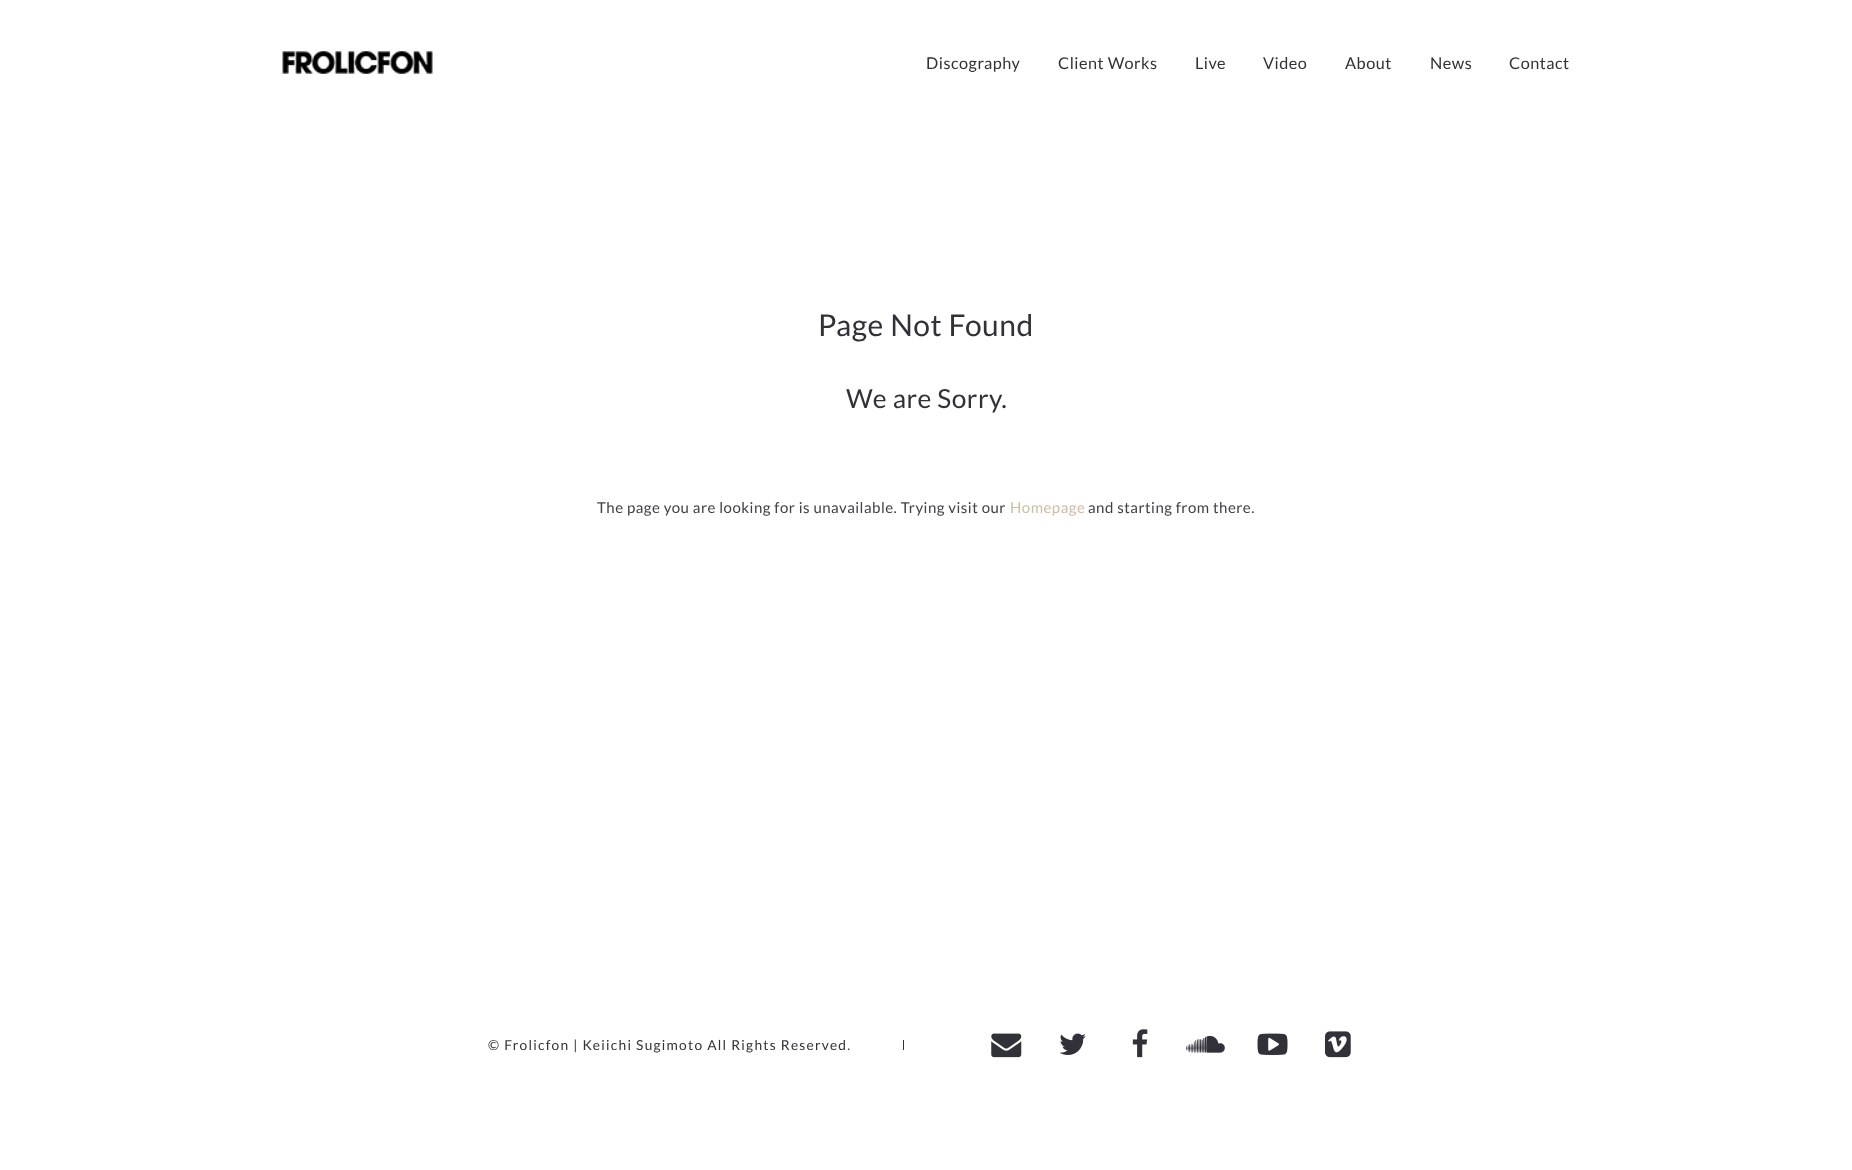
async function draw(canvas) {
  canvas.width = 1852
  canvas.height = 1170
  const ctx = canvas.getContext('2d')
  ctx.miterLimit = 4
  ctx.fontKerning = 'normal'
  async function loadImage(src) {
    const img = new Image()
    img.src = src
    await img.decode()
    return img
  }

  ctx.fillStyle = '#fff'
  ctx.fillRect(0, 0, 1852, 1170)
  ctx.drawImage(await loadImage('image0.png'), 282, 51, 151, 23)
  ctx.letterSpacing = '0.5px'
  ctx.font = '16.25px Lato'
  ctx.fillStyle = '#313139'
  ctx.fillText('Discography', 926, 69)
  ctx.fillText('Client Works', 1058, 69)
  ctx.fillText('Live', 1195, 69)
  ctx.fillText('Video', 1263, 69)
  ctx.fillText('About', 1345, 69)
  ctx.fillText('News', 1430, 69)
  ctx.fillText('Contact', 1509, 69)
  ctx.font = '30px Lato'
  ctx.fillText('Page Not Found', 818, 336)
  ctx.font = '26.25px Lato'
  ctx.fillText('We are Sorry.', 846, 408)
  ctx.font = '15px Lato'
  ctx.fillStyle = '#414145'
  ctx.fillText('The page you are looking for is unavailable. Trying visit our', 597, 513)
  ctx.fillStyle = '#cfbca6'
  ctx.fillText('Homepage', 1010, 513)
  ctx.fillStyle = '#414145'
  ctx.fillText('and starting from there.', 1088, 513)
  ctx.letterSpacing = '1.25px'
  ctx.font = '13.75px Lato'
  ctx.fillStyle = '#313139'
  ctx.fillText('© Frolicfon | Keiichi Sugimoto All Rights Reserved.', 488, 1050)
  ctx.fillRect(903, 1040, 1, 10)
  ctx.drawImage(await loadImage('image1.png'), 991, 1033, 31, 25)
  ctx.drawImage(await loadImage('image2.png'), 1059, 1033, 27, 22)
  ctx.drawImage(await loadImage('image3.png'), 1132, 1029, 16, 29)
  ctx.drawImage(await loadImage('image4.png'), 1186, 1035, 39, 18)
  ctx.drawImage(await loadImage('image5.png'), 1257, 1033, 31, 22)
  ctx.drawImage(await loadImage('image6.png'), 1325, 1031, 26, 27)
}

draw(document.querySelector('canvas'))
